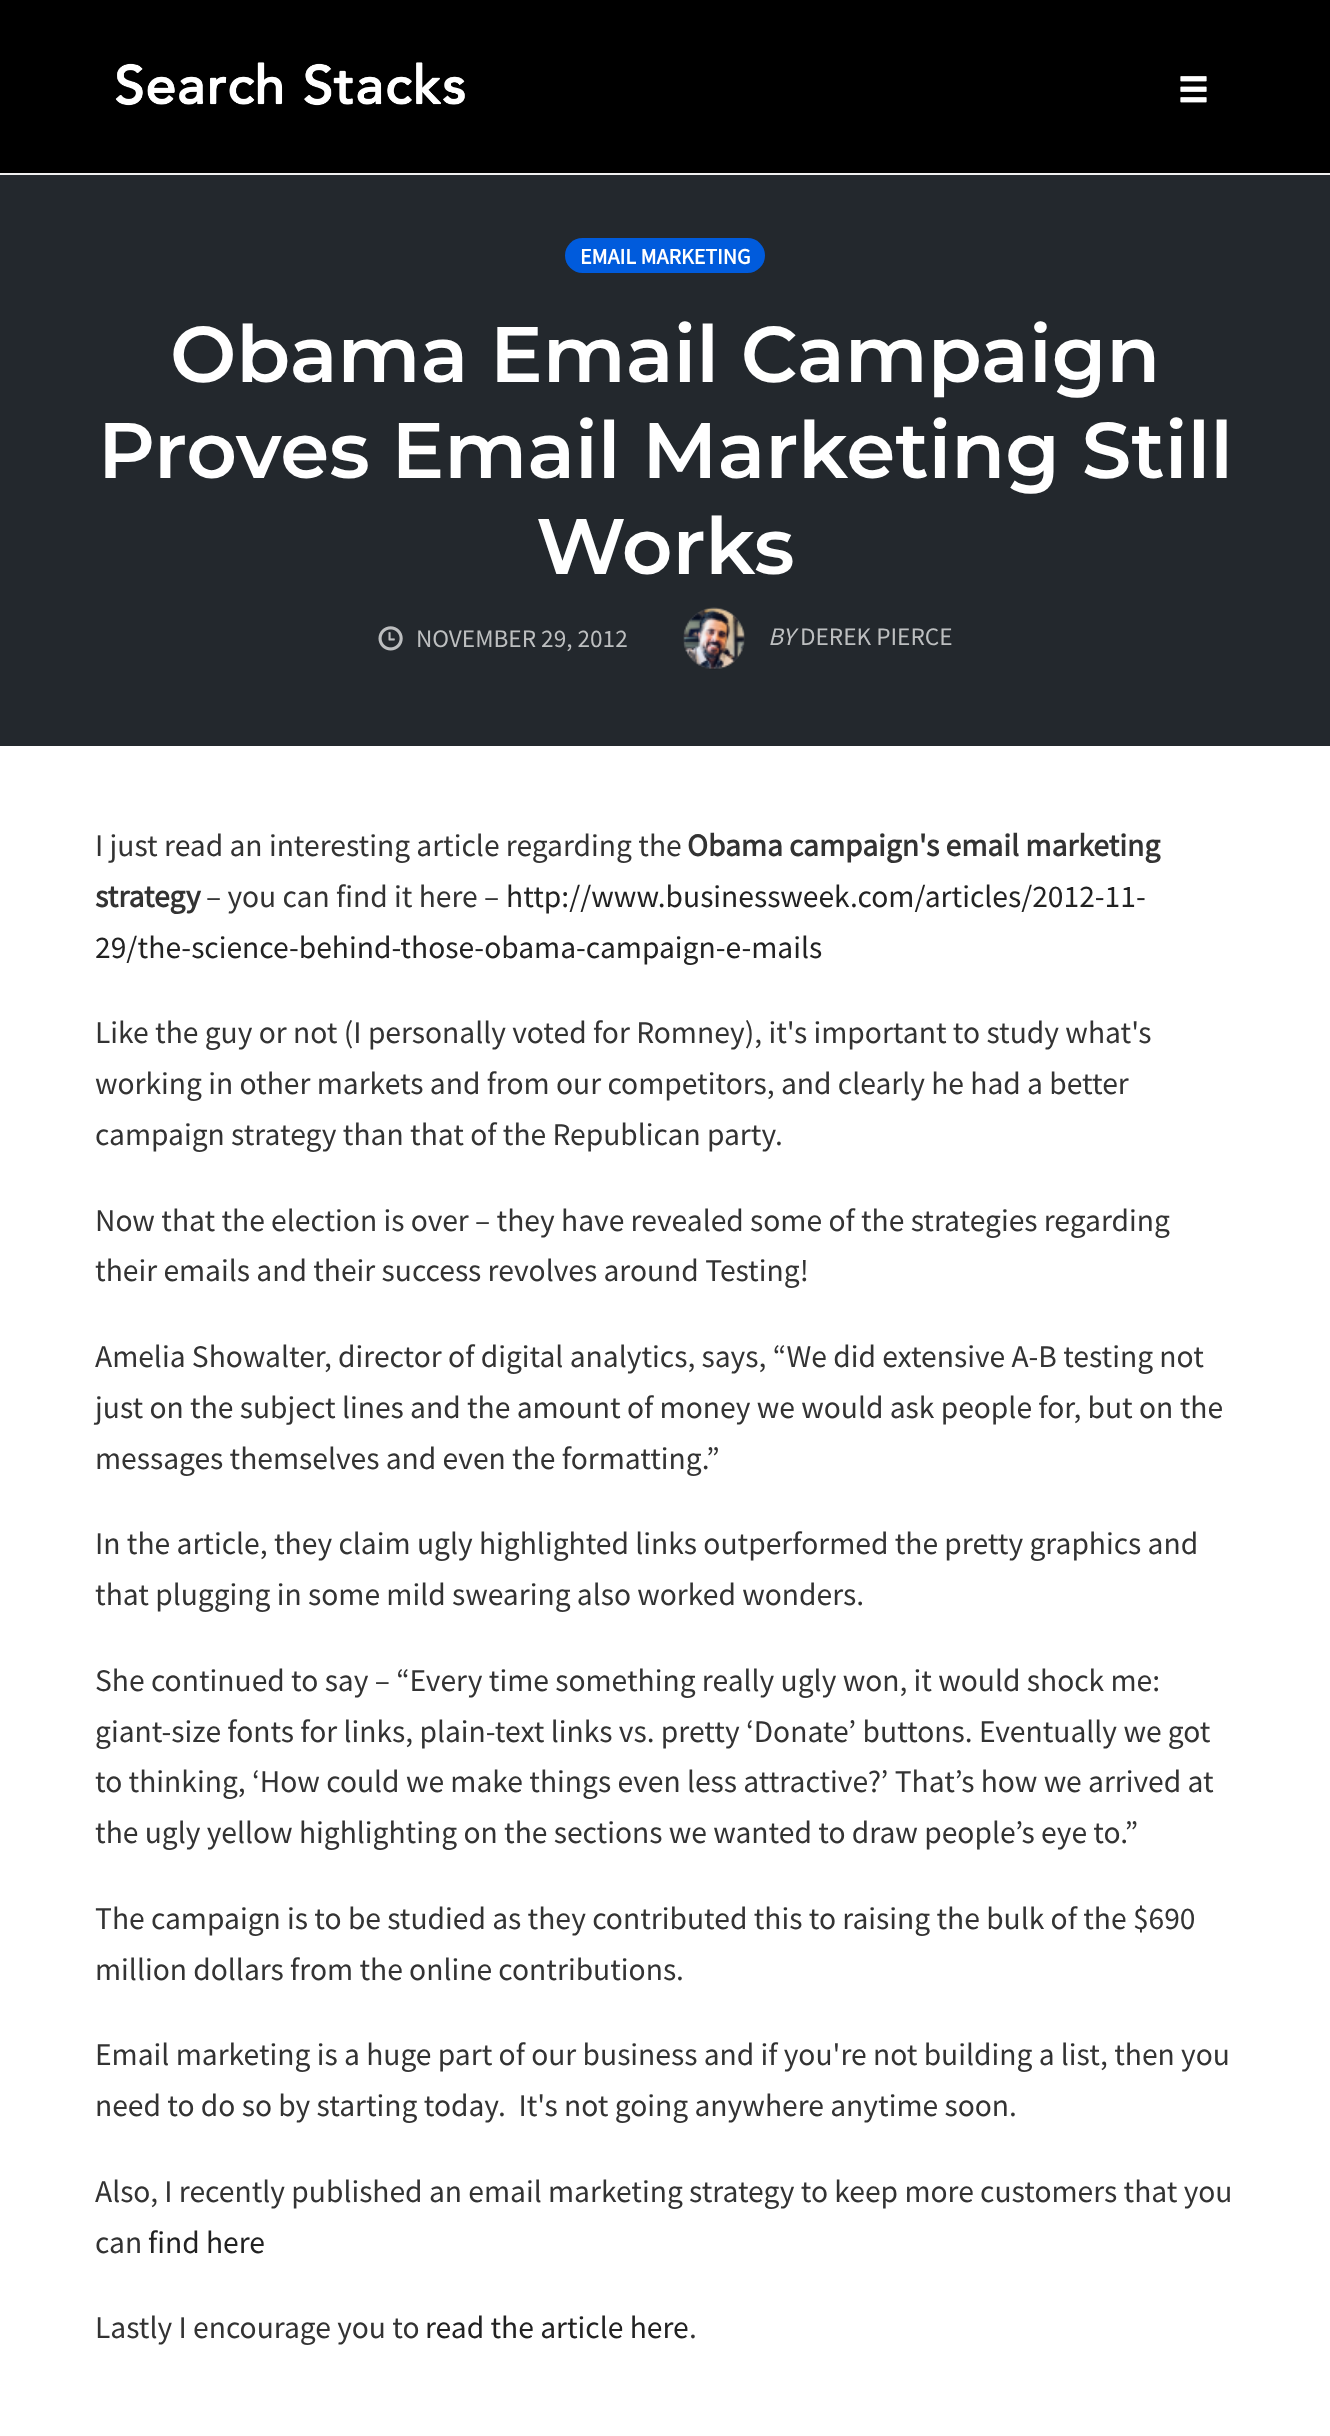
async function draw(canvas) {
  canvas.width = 1330
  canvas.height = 2436
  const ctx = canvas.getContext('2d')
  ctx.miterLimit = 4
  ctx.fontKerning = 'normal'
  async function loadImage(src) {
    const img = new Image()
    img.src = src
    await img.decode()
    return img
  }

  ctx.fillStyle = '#fff'
  ctx.fillRect(0, 0, 1330, 2436)
  ctx.fillStyle = '#000'
  ctx.fillRect(0, 0, 1330, 173)
  ctx.fillStyle = '#f0f0f0'
  ctx.fillRect(0, 173, 1330, 2)
  ctx.drawImage(await loadImage('image0.png'), 115, 62, 350, 44)
  ctx.drawImage(await loadImage('image1.png'), 1180, 76, 27, 27)
  ctx.fillStyle = '#23282d'
  ctx.fillRect(0, 175, 1330, 571)
  ctx.fillStyle = '#005bdc'
  ctx.beginPath()
  ctx.roundRect(565, 238, 200, 35, 17.5)
  ctx.fill()
  ctx.font = 'bold 22px Source Sans Pro'
  ctx.fillStyle = '#fff'
  ctx.fillText('EMAIL MARKETING', 580, 264)
  ctx.font = '600 78.75px Montserrat'
  ctx.fillText('Obama Email Campaign', 170, 382)
  ctx.fillText('Proves Email Marketing Still', 98, 478)
  ctx.fillText('Works', 536, 574)
  ctx.drawImage(await loadImage('image2.png'), 378, 626, 25, 25)
  ctx.font = '25.25px Source Sans Pro'
  ctx.fillStyle = '#bdbfc0'
  ctx.fillText('NOVEMBER 29, 2012', 416, 647)
  ctx.drawImage(await loadImage('image3.png'), 683, 607, 62, 63)
  ctx.font = 'italic 25.25px Source Sans Pro'
  ctx.fillText('BY', 768, 645)
  ctx.font = '25.25px Source Sans Pro'
  ctx.fillText('DEREK PIERCE', 800, 645)
  ctx.font = '31.5px Source Sans Pro'
  ctx.fillStyle = '#333'
  ctx.fillText('I just read an interesting article regarding the', 95, 856)
  ctx.font = 'bold 31.5px Source Sans Pro'
  ctx.fillText('Obama campaign\'s email marketing', 687, 856)
  ctx.fillText('strategy', 95, 907)
  ctx.font = '31.5px Source Sans Pro'
  ctx.fillText('– you can find it here –', 206, 907)
  ctx.fillStyle = '#222'
  ctx.fillText('http://www.businessweek.com/articles/2012-11-', 506, 907)
  ctx.fillText('29/the-science-behind-those-obama-campaign-e-mails', 95, 958)
  ctx.fillStyle = '#333'
  ctx.fillText('Like the guy or not (I personally voted for Romney), it\'s important to study what\'s', 95, 1043)
  ctx.fillText('working in other markets and from our competitors, and clearly he had a better', 95, 1094)
  ctx.fillText('campaign strategy than that of the Republican party.', 95, 1145)
  ctx.fillText('Now that the election is over – they have revealed some of the strategies regarding', 95, 1231)
  ctx.fillText('their emails and their success revolves around Testing!', 95, 1281)
  ctx.fillText('Amelia Showalter, director of digital analytics, says, “We did extensive A-B testing not', 95, 1367)
  ctx.fillText('just on the subject lines and the amount of money we would ask people for, but on the', 95, 1418)
  ctx.fillText('messages themselves and even the formatting.”', 95, 1469)
  ctx.fillText('In the article, they claim ugly highlighted links outperformed the pretty graphics and', 95, 1554)
  ctx.fillText('that plugging in some mild swearing also worked wonders.', 95, 1605)
  ctx.fillText('She continued to say – “Every time something really ugly won, it would shock me:', 95, 1691)
  ctx.fillText('giant-size fonts for links, plain-text links vs. pretty ‘Donate’ buttons. Eventually we got', 95, 1742)
  ctx.fillText('to thinking, ‘How could we make things even less attractive?’ That’s how we arrived at', 95, 1792)
  ctx.fillText('the ugly yellow highlighting on the sections we wanted to draw people’s eye to.”', 95, 1843)
  ctx.fillText('The campaign is to be studied as they contributed this to raising the bulk of the $690', 95, 1929)
  ctx.fillText('million dollars from the online contributions.', 95, 1980)
  ctx.fillText('Email marketing is a huge part of our business and if you\'re not building a list, then you', 95, 2065)
  ctx.fillText('need to do so by starting today.  It\'s not going anywhere anytime soon.', 95, 2116)
  ctx.fillText('Also, I recently published an email marketing strategy to keep more customers that you', 95, 2202)
  ctx.fillText('can', 95, 2253)
  ctx.fillStyle = '#222'
  ctx.fillText('find here', 148, 2253)
  ctx.fillStyle = '#333'
  ctx.fillText('Lastly I encourage you to', 95, 2338)
  ctx.fillStyle = '#222'
  ctx.fillText('read the article here', 425, 2338)
  ctx.fillStyle = '#333'
  ctx.fillText('.', 689, 2338)
}

draw(document.querySelector('canvas'))
